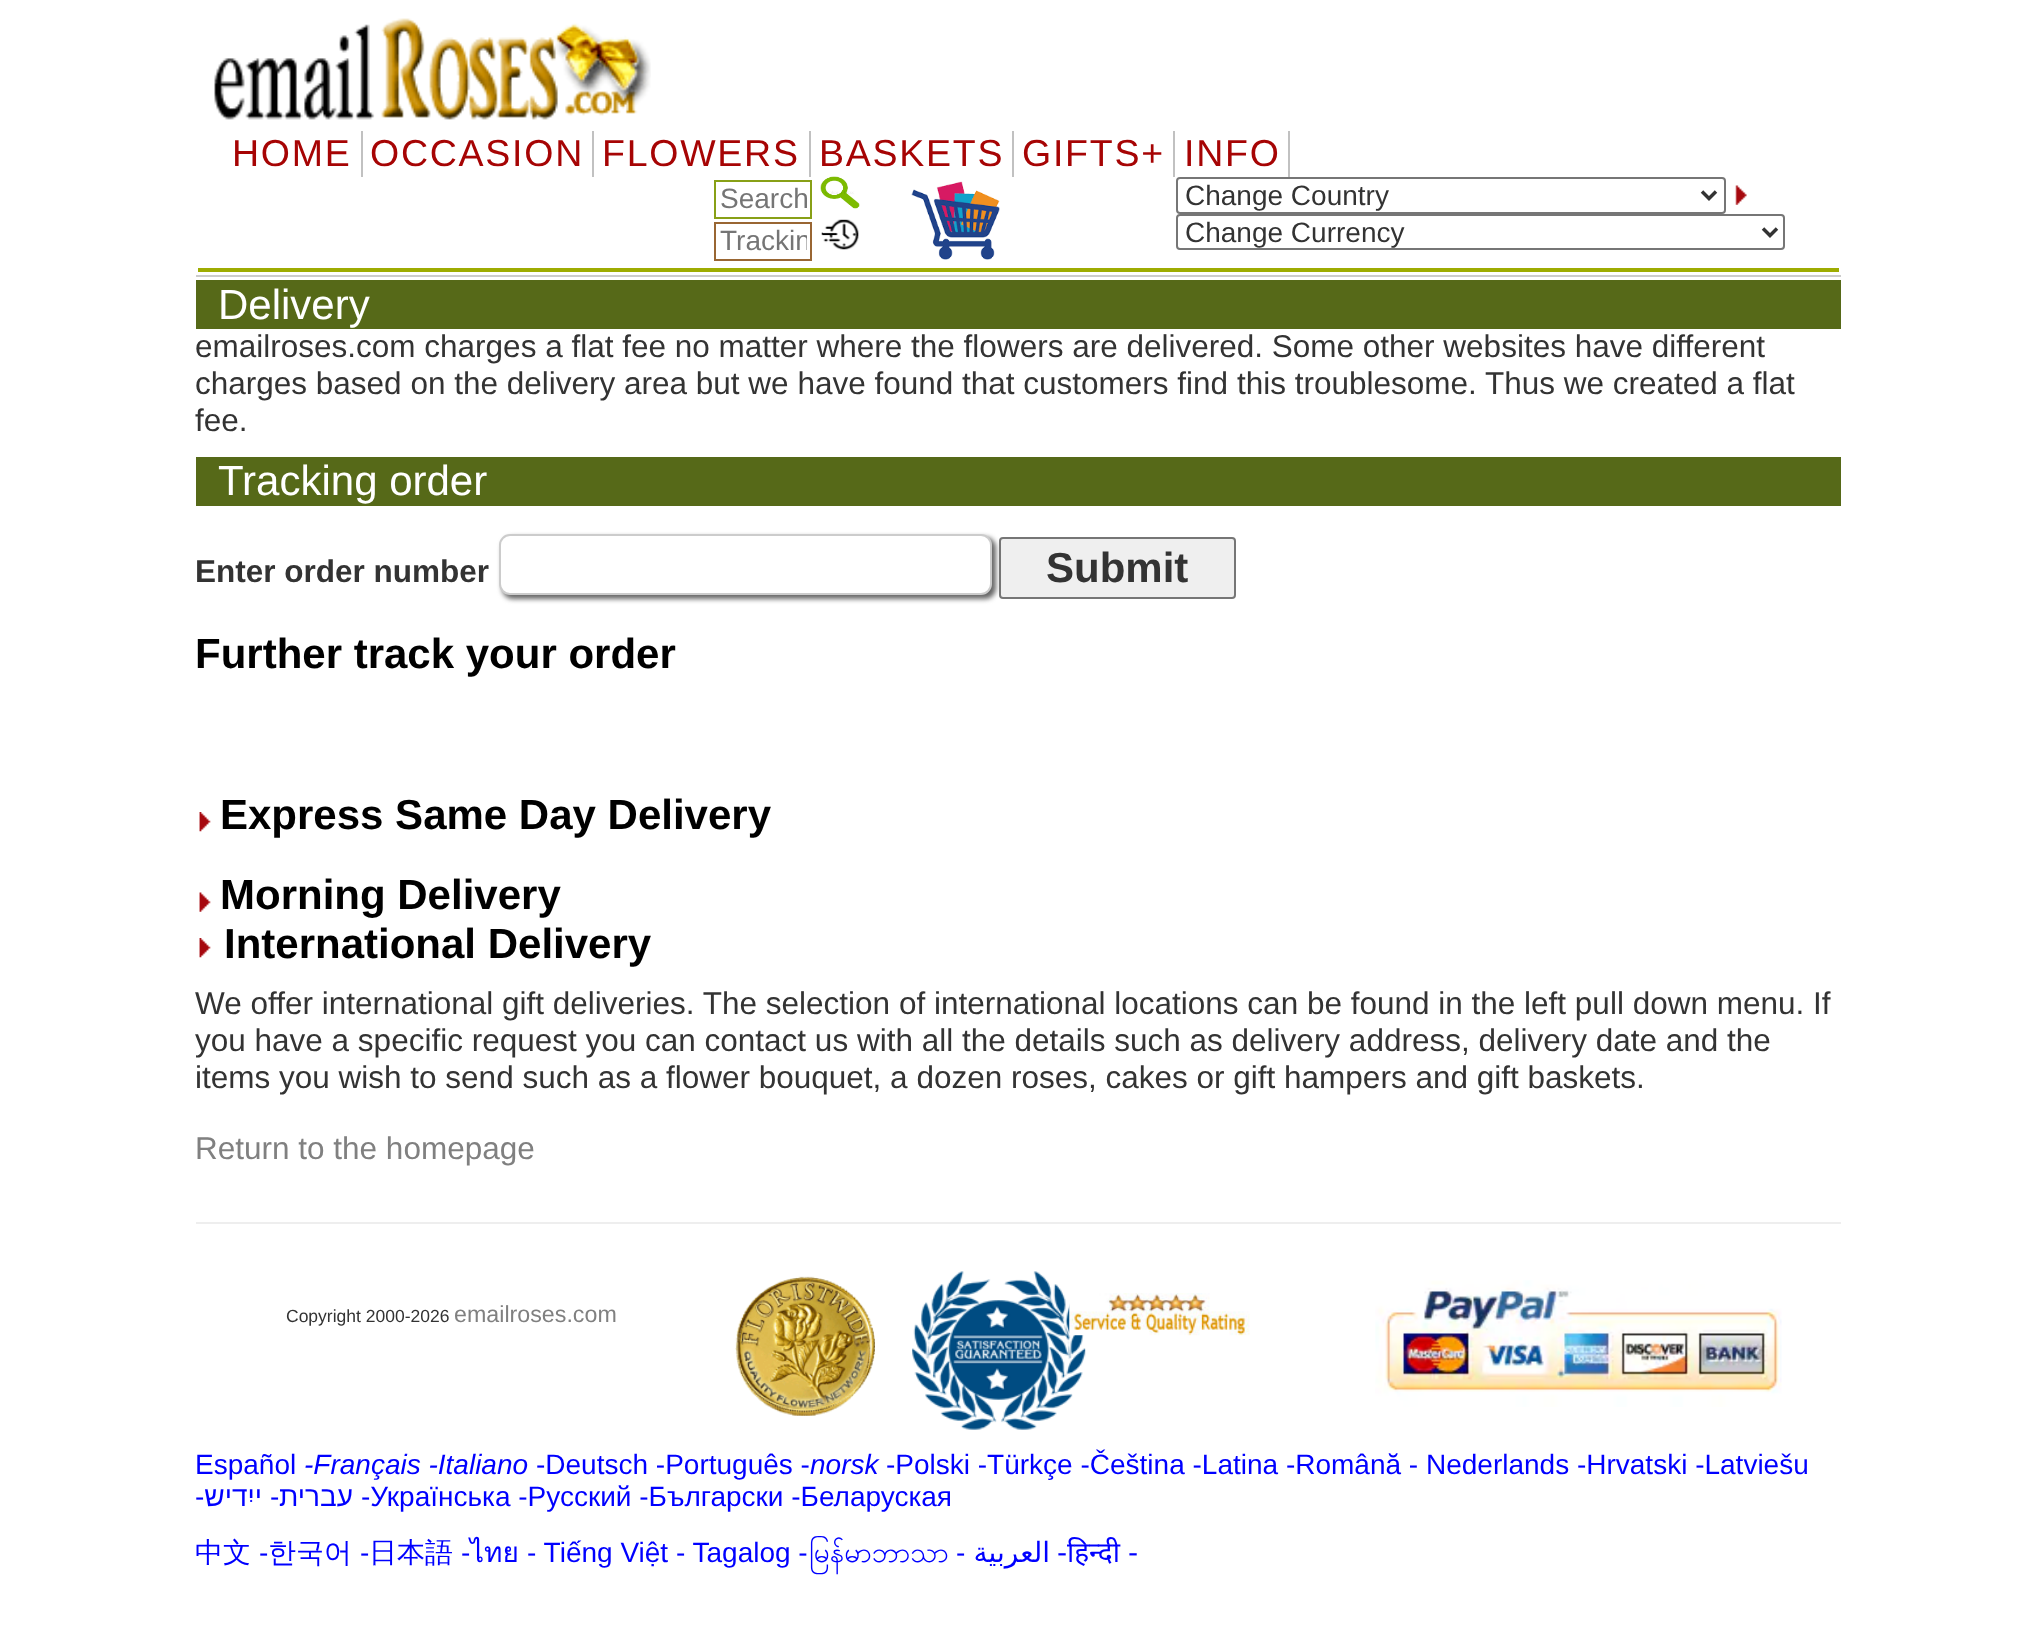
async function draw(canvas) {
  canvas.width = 2043
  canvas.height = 1626
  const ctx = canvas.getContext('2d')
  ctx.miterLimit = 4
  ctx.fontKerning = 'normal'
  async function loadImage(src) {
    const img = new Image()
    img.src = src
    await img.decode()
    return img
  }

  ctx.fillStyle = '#fff'
  ctx.fillRect(0, 0, 2043, 1626)
  ctx.drawImage(await loadImage('image0.png'), 214, 18, 437, 102)
  ctx.fillStyle = '#9eac01'
  ctx.fillRect(198, 268, 1641, 4)
  ctx.fillStyle = '#c1c1c1'
  ctx.fillRect(361, 131, 2, 46)
  ctx.letterSpacing = '1.75px'
  ctx.font = '37.5px Liberation Sans'
  ctx.fillStyle = '#a60404'
  ctx.fillText('HOME', 232, 166)
  ctx.fillStyle = '#c1c1c1'
  ctx.fillRect(592, 131, 2, 46)
  ctx.fillStyle = '#a60404'
  ctx.fillText('OCCASION', 370, 166)
  ctx.fillStyle = '#c1c1c1'
  ctx.fillRect(809, 131, 2, 46)
  ctx.fillStyle = '#a60404'
  ctx.fillText('FLOWERS', 602, 166)
  ctx.fillStyle = '#c1c1c1'
  ctx.fillRect(1012, 131, 2, 46)
  ctx.fillStyle = '#a60404'
  ctx.fillText('BASKETS', 819, 166)
  ctx.fillStyle = '#c1c1c1'
  ctx.fillRect(1173, 131, 2, 46)
  ctx.fillStyle = '#a60404'
  ctx.fillText('GIFTS+', 1022, 166)
  ctx.fillStyle = '#c1c1c1'
  ctx.fillRect(1288, 131, 2, 46)
  ctx.fillStyle = '#a60404'
  ctx.fillText('INFO', 1184, 166)
  ctx.strokeStyle = '#88a016'
  ctx.lineWidth = 2
  ctx.strokeRect(715, 181, 96, 37)
  ctx.letterSpacing = '0px'
  ctx.font = '28px Liberation Sans'
  ctx.fillStyle = '#757575'
  ctx.fillText('Search', 720, 208)
  ctx.drawImage(await loadImage('image1.png'), 820, 176, 40, 33)
  ctx.strokeStyle = '#963'
  ctx.strokeRect(715, 223, 96, 37)
  ctx.save()
  ctx.beginPath()
  ctx.rect(719, 226, 88, 31)
  ctx.clip()
  ctx.fillText('Trackin', 720, 250)
  ctx.restore()
  ctx.drawImage(await loadImage('image2.png'), 821, 219, 38, 31)
  ctx.drawImage(await loadImage('image3.png'), 911, 181, 89, 79)
  ctx.beginPath()
  ctx.roundRect(1177, 178, 548, 35, 3)
  ctx.strokeStyle = '#767676'
  ctx.stroke()
  ctx.beginPath()
  ctx.moveTo(1702, 191.5)
  ctx.lineTo(1709, 198.5)
  ctx.lineTo(1716, 191.5)
  ctx.strokeStyle = '#333'
  ctx.lineWidth = 3.5
  ctx.stroke()
  ctx.fillStyle = '#333'
  ctx.fillText('Change Country', 1185, 205)
  ctx.drawImage(await loadImage('image4.png'), 1735, 185, 12, 20)
  ctx.beginPath()
  ctx.roundRect(1177, 215, 607, 34, 3)
  ctx.strokeStyle = '#767676'
  ctx.lineWidth = 2
  ctx.stroke()
  ctx.beginPath()
  ctx.moveTo(1763, 228.5)
  ctx.lineTo(1770, 235.5)
  ctx.lineTo(1777, 228.5)
  ctx.strokeStyle = '#333'
  ctx.lineWidth = 3.5
  ctx.stroke()
  ctx.fillText('Change Currency', 1185, 242)
  ctx.fillStyle = '#ccc'
  ctx.fillRect(196, 275, 1645, 2)
  ctx.fillStyle = '#566918'
  ctx.fillRect(196, 280, 1645, 49)
  ctx.font = '42px Liberation Sans'
  ctx.fillStyle = '#fff'
  ctx.fillText('Delivery', 218, 319)
  ctx.font = '31.5px Liberation Sans'
  ctx.fillStyle = '#333'
  ctx.fillText('emailroses.com charges a flat fee no matter where the flowers are delivered. Some other websites have different', 195, 357)
  ctx.fillText('charges based on the delivery area but we have found that customers find this troublesome. Thus we created a flat', 195, 394)
  ctx.fillText('fee.', 195, 431)
  ctx.fillStyle = '#566918'
  ctx.fillRect(196, 457, 1645, 49)
  ctx.font = '42px Liberation Sans'
  ctx.fillStyle = '#fff'
  ctx.fillText('Tracking order', 218, 495)
  ctx.font = 'bold 31.5px Liberation Sans'
  ctx.fillStyle = '#333'
  ctx.fillText('Enter order number', 195, 582)
  ctx.fillStyle = '#efefef'
  ctx.beginPath()
  ctx.roundRect(1000, 538, 235, 60, 3)
  ctx.fill()
  ctx.strokeStyle = '#767676'
  ctx.lineWidth = 2
  ctx.stroke()
  ctx.fillStyle = '#666'
  ctx.filter = 'blur(2.5px)'
  ctx.beginPath()
  ctx.roundRect(502, 537, 494, 62, 11)
  ctx.fill()
  ctx.filter = 'none'
  ctx.fillStyle = '#fff'
  ctx.beginPath()
  ctx.roundRect(500, 535, 491, 59, 10)
  ctx.fill()
  ctx.strokeStyle = '#ccc'
  ctx.stroke()
  ctx.font = 'bold 42px Liberation Sans'
  ctx.fillStyle = '#333'
  ctx.fillText('Submit', 1046, 582)
  ctx.fillStyle = '#000'
  ctx.fillText('Further track your order', 195, 668)
  ctx.drawImage(await loadImage('image5.png'), 199, 812, 12, 20)
  ctx.fillText('Express Same Day Delivery', 220, 829)
  ctx.drawImage(await loadImage('image6.png'), 199, 892, 12, 20)
  ctx.fillText('Morning Delivery', 220, 909)
  ctx.drawImage(await loadImage('image5.png'), 199, 938, 12, 20)
  ctx.fillText('International Delivery', 224, 958)
  ctx.font = '31.5px Liberation Sans'
  ctx.fillStyle = '#333'
  ctx.fillText('We offer international gift deliveries. The selection of international locations can be found in the left pull down menu. If', 195, 1014)
  ctx.fillText('you have a specific request you can contact us with all the details such as delivery address, delivery date and the', 195, 1051)
  ctx.fillText('items you wish to send such as a flower bouquet, a dozen roses, cakes or gift hampers and gift baskets.', 195, 1088)
  ctx.fillStyle = '#808080'
  ctx.fillText('Return to the homepage', 195, 1159)
  ctx.fillStyle = '#eee'
  ctx.fillRect(196, 1222, 1645, 2)
  ctx.font = '17.5px Liberation Sans'
  ctx.fillStyle = '#333'
  ctx.fillText('Copyright 2000-2026', 286, 1322)
  ctx.font = '23.25px Liberation Sans'
  ctx.fillStyle = '#808080'
  ctx.fillText('emailroses.com', 454, 1322)
  ctx.drawImage(await loadImage('image7.png'), 735, 1276, 140, 140)
  ctx.drawImage(await loadImage('image8.png'), 912, 1271, 174, 159)
  ctx.drawImage(await loadImage('image9.png'), 1069, 1293, 181, 43)
  ctx.drawImage(await loadImage('image10.png'), 1375, 1280, 407, 127)
  ctx.font = '28px Liberation Sans'
  ctx.fillStyle = '#00f'
  ctx.fillText('Español', 195, 1474)
  ctx.font = 'italic 28px Liberation Sans'
  ctx.fillText('-Français -Italiano', 304, 1474)
  ctx.font = '28px Liberation Sans'
  ctx.fillText('-Deutsch -Português -', 536, 1474)
  ctx.font = 'italic 28px Liberation Sans'
  ctx.fillText('norsk', 810, 1474)
  ctx.font = '28px Liberation Sans'
  ctx.fillText('-Polski -Türkçe -Čeština -Latina -Română - Nederlands -Hrvatski -Latviešu', 886, 1474)
  ctx.fillText('-', 195, 1506)
  ctx.direction = 'rtl'
  ctx.fillText('ייִדיש', 262, 1506)
  ctx.direction = 'ltr'
  ctx.fillText('-', 270, 1506)
  ctx.direction = 'rtl'
  ctx.fillText('עברית', 353, 1506)
  ctx.direction = 'ltr'
  ctx.fillText('-Українська -Русский -Български -Беларуская', 361, 1506)
  ctx.font = '500 28px WenQuanYi Zen Hei'
  ctx.fillText('中文', 195, 1562)
  ctx.font = '28px Liberation Sans'
  ctx.fillText('-', 259, 1562)
  ctx.font = '500 28px WenQuanYi Zen Hei'
  ctx.fillText('한국어', 268, 1562)
  ctx.font = '28px Liberation Sans'
  ctx.fillText('-', 360, 1562)
  ctx.font = '500 28px WenQuanYi Zen Hei'
  ctx.fillText('日本語', 369, 1562)
  ctx.font = '28px Liberation Sans'
  ctx.fillText('-', 461, 1562)
  ctx.font = '28px Loma'
  ctx.fillText('ไทย', 470, 1562)
  ctx.font = '28px Liberation Sans'
  ctx.fillText('- Tiếng Việt - Tagalog -', 527, 1562)
  ctx.font = '28px Padauk'
  ctx.fillText('မြန်မာဘာသာ', 809, 1562)
  ctx.font = '28px Liberation Sans'
  ctx.fillText('-', 956, 1562)
  ctx.direction = 'rtl'
  ctx.font = '28px DejaVu Sans'
  ctx.fillText('العربية', 1050, 1562)
  ctx.direction = 'ltr'
  ctx.fillText('-', 1057, 1562)
  ctx.font = '28px Noto Sans'
  ctx.fillText('हिन्दी', 1067, 1562)
  ctx.font = '28px DejaVu Sans'
  ctx.fillText('-', 1128, 1562)
}

draw(document.querySelector('canvas'))
